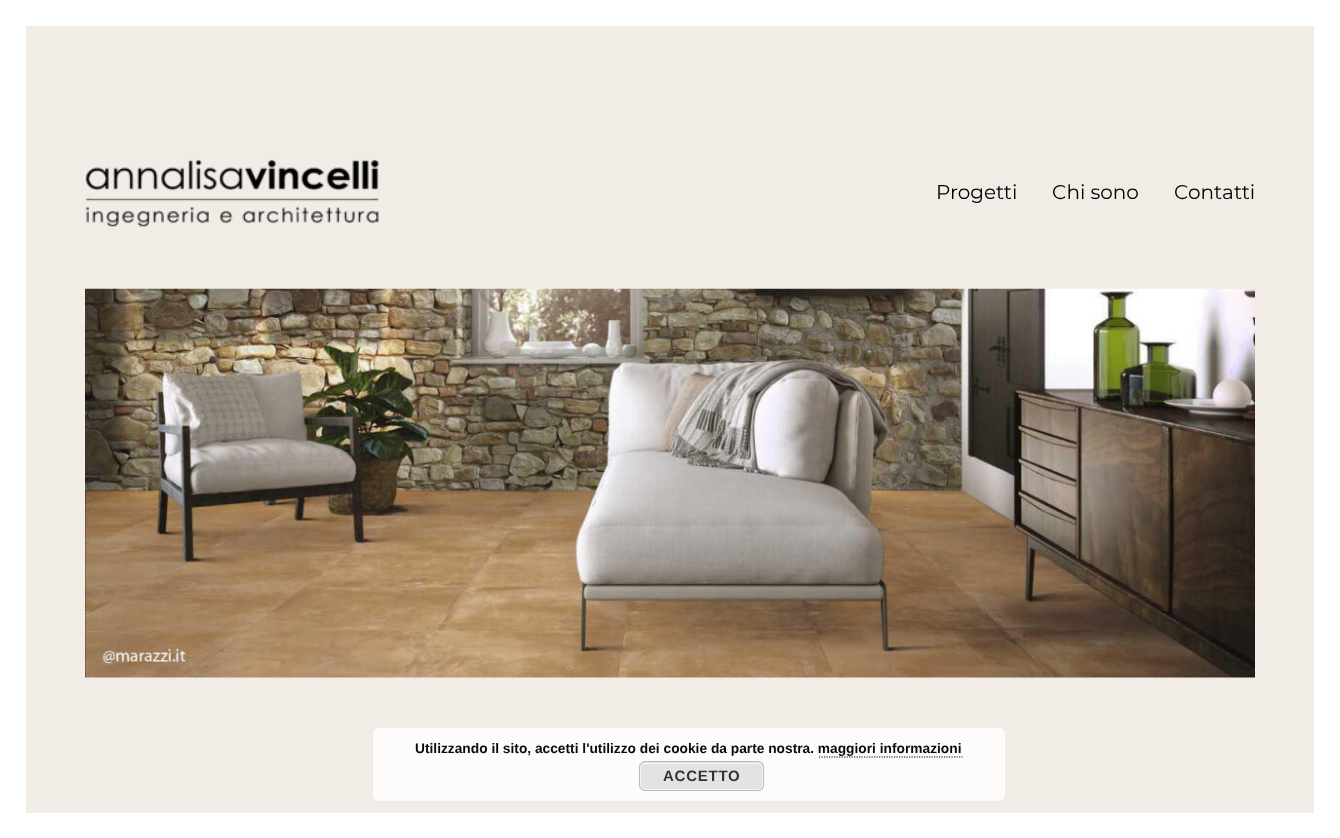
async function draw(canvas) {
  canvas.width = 1340
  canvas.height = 838
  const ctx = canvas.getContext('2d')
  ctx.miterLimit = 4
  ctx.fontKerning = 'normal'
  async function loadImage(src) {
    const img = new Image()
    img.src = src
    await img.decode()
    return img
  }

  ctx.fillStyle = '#fff'
  ctx.fillRect(0, 0, 1340, 838)
  ctx.fillStyle = '#f2ece6'
  ctx.fillRect(26, 26, 1288, 787)
  ctx.drawImage(await loadImage('image0.png'), 85, 159, 294, 68)
  ctx.font = '100 20px Montserrat'
  ctx.fillStyle = '#000'
  ctx.fillText('Progetti', 936, 199)
  ctx.fillText('Chi sono', 1052, 199)
  ctx.fillText('Contatti', 1174, 199)
  ctx.drawImage(await loadImage('image1.png'), 85, 288, 1170, 390)
  ctx.fillStyle = '#fdfcfb'
  ctx.beginPath()
  ctx.roundRect(373, 728, 632, 73, 6)
  ctx.fill()
  ctx.font = 'bold 13.75px Liberation Sans'
  ctx.fillStyle = '#0a0a0a'
  ctx.fillText('Utilizzando il sito, accetti l\'utilizzo dei cookie da parte nostra. maggiori informazioni', 415, 753)
  ctx.beginPath()
  ctx.moveTo(819, 757)
  ctx.lineTo(962.5, 757)
  ctx.strokeStyle = '#0a0a0a'
  ctx.lineWidth = 1.2
  ctx.setLineDash([1.25, 1.25])
  ctx.stroke()
  ctx.fillStyle = '#e3e3e3'
  ctx.beginPath()
  ctx.roundRect(639, 761, 125, 30, 6)
  ctx.fill()
  ctx.beginPath()
  ctx.roundRect(640.5, 763.5, 122, 26, 4.5)
  ctx.strokeStyle = '#f6f6f6'
  ctx.lineWidth = 1
  ctx.setLineDash([])
  ctx.stroke()
  ctx.beginPath()
  ctx.roundRect(639.5, 761.5, 124, 29, 5.5)
  ctx.strokeStyle = '#bbb'
  ctx.stroke()
  ctx.letterSpacing = '0.75px'
  ctx.font = 'bold 15px Liberation Sans'
  ctx.fillStyle = '#333'
  ctx.fillText('ACCETTO', 663, 781)
}

draw(document.querySelector('canvas'))
